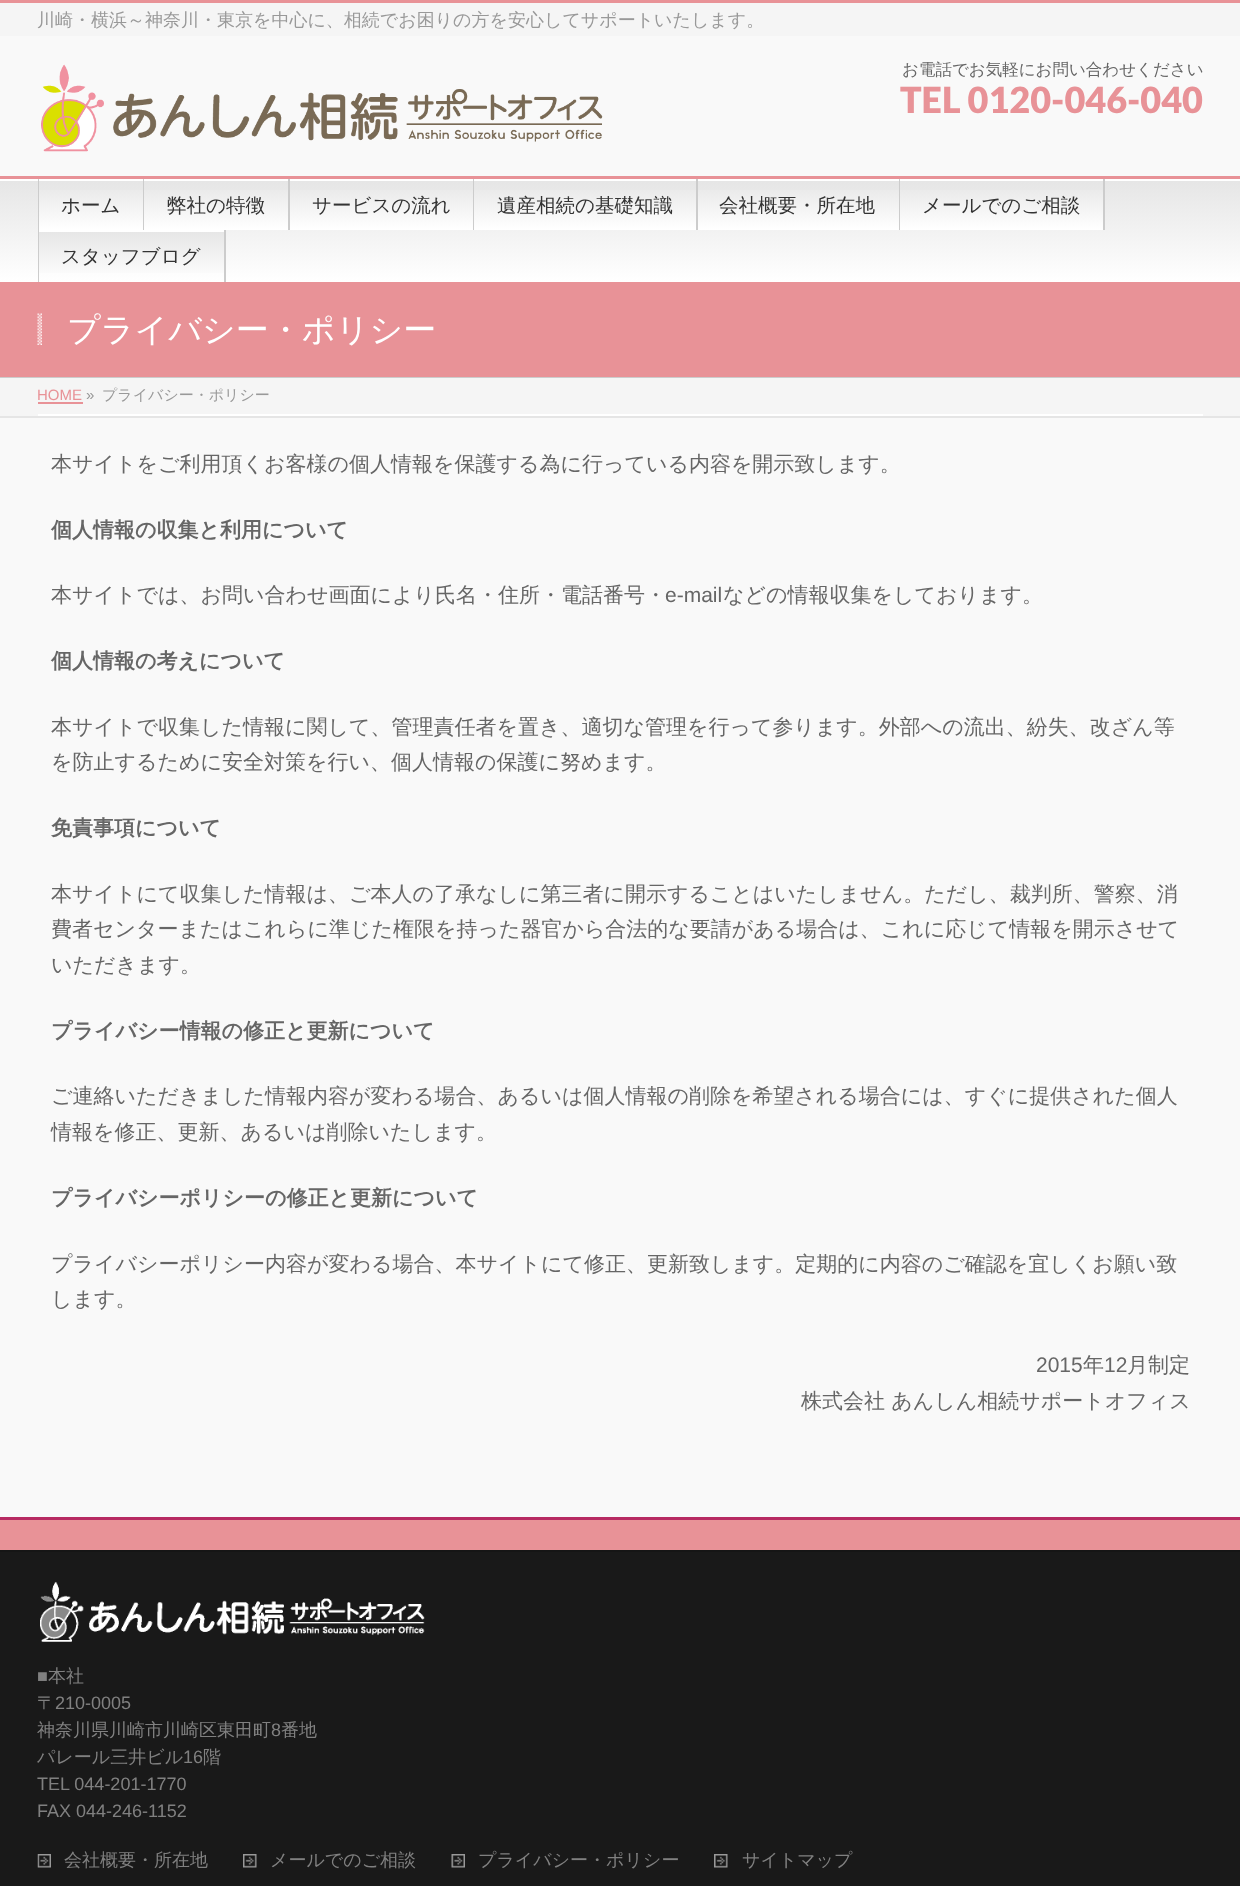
async function draw(canvas) {
  canvas.width = 1240
  canvas.height = 1886
  const ctx = canvas.getContext('2d')
  ctx.miterLimit = 4
  ctx.fontKerning = 'normal'
  async function loadImage(src) {
    const img = new Image()
    img.src = src
    await img.decode()
    return img
  }
  let gradient

  ctx.fillStyle = '#f9f9f9'
  ctx.fillRect(0, 0, 1240, 1886)
  ctx.fillStyle = '#f5f5f5'
  ctx.fillRect(0, 3, 1240, 33)
  ctx.fillStyle = '#e89297'
  ctx.fillRect(0, 0, 1240, 3)
  ctx.font = '500 18px WenQuanYi Zen Hei'
  ctx.fillStyle = '#999'
  ctx.fillText('川崎・横浜～神奈川・東京を中心に、相続でお困りの方を安心してサポートいたします。', 37, 26)
  ctx.drawImage(await loadImage('image0.png'), 41, 64, 562, 88)
  ctx.font = '500 16.5px WenQuanYi Zen Hei'
  ctx.fillStyle = '#666'
  ctx.fillText('お電話でお気軽にお問い合わせください', 902, 75)
  ctx.font = '900 36px Lato'
  ctx.fillStyle = '#e89297'
  ctx.fillText('TEL 0120-046-040', 900, 113)
  gradient = ctx.createLinearGradient(620, 178, 620, 282)
  gradient.addColorStop(0, '#e5e5e5')
  gradient.addColorStop(1, '#fff')
  ctx.fillStyle = gradient
  ctx.fillRect(0, 181, 1240, 101)
  ctx.fillStyle = '#fff'
  ctx.fillRect(0, 179, 1240, 2)
  ctx.fillStyle = '#e89297'
  ctx.fillRect(0, 176, 1240, 3)
  ctx.fillStyle = '#ccc'
  ctx.fillRect(38, 179, 1, 103)
  gradient = ctx.createLinearGradient(39, 179, 39, 230)
  gradient.addColorStop(0, '#e5e5e5')
  gradient.addColorStop(1, '#fff')
  ctx.fillStyle = gradient
  ctx.fillRect(39, 190, 104, 40)
  ctx.fillStyle = '#ccc'
  ctx.fillRect(143, 179, 1, 51)
  ctx.font = '500 19.5px WenQuanYi Zen Hei'
  ctx.fillStyle = '#333'
  ctx.fillText('ホーム', 61, 212)
  gradient = ctx.createLinearGradient(144, 179, 144, 230)
  gradient.addColorStop(0, '#e5e5e5')
  gradient.addColorStop(1, '#fff')
  ctx.fillStyle = gradient
  ctx.fillRect(144, 190, 144, 40)
  ctx.fillStyle = '#ccc'
  ctx.fillRect(288, 179, 2, 51)
  ctx.fillStyle = '#333'
  ctx.fillText('弊社の特徴', 167, 212)
  gradient = ctx.createLinearGradient(290, 179, 290, 230)
  gradient.addColorStop(0, '#e5e5e5')
  gradient.addColorStop(1, '#fff')
  ctx.fillStyle = gradient
  ctx.fillRect(290, 190, 183, 40)
  ctx.fillStyle = '#ccc'
  ctx.fillRect(473, 179, 1, 51)
  ctx.fillStyle = '#333'
  ctx.fillText('サービスの流れ', 312, 212)
  gradient = ctx.createLinearGradient(474, 179, 474, 230)
  gradient.addColorStop(0, '#e5e5e5')
  gradient.addColorStop(1, '#fff')
  ctx.fillStyle = gradient
  ctx.fillRect(474, 190, 222, 40)
  ctx.fillStyle = '#ccc'
  ctx.fillRect(696, 179, 2, 51)
  ctx.fillStyle = '#333'
  ctx.fillText('遺産相続の基礎知識', 497, 212)
  gradient = ctx.createLinearGradient(698, 179, 698, 230)
  gradient.addColorStop(0, '#e5e5e5')
  gradient.addColorStop(1, '#fff')
  ctx.fillStyle = gradient
  ctx.fillRect(698, 190, 201, 40)
  ctx.fillStyle = '#ccc'
  ctx.fillRect(899, 179, 1, 51)
  ctx.fillStyle = '#333'
  ctx.fillText('会社概要・所在地', 719, 212)
  gradient = ctx.createLinearGradient(900, 179, 900, 230)
  gradient.addColorStop(0, '#e5e5e5')
  gradient.addColorStop(1, '#fff')
  ctx.fillStyle = gradient
  ctx.fillRect(900, 190, 203, 40)
  ctx.fillStyle = '#ccc'
  ctx.fillRect(1103, 179, 2, 51)
  ctx.fillStyle = '#333'
  ctx.fillText('メールでのご相談', 922, 212)
  gradient = ctx.createLinearGradient(39, 230, 39, 282)
  gradient.addColorStop(0, '#e5e5e5')
  gradient.addColorStop(1, '#fff')
  ctx.fillStyle = gradient
  ctx.fillRect(39, 232, 185, 41)
  ctx.fillStyle = '#fff'
  ctx.fillRect(39, 230, 185, 2)
  ctx.fillStyle = '#ccc'
  ctx.fillRect(224, 230, 2, 52)
  ctx.fillStyle = '#333'
  ctx.fillText('スタッフブログ', 61, 263)
  ctx.fillStyle = '#e89297'
  ctx.fillRect(0, 282, 1240, 95)
  ctx.fillStyle = '#ccc'
  ctx.fillRect(0, 377, 1240, 1)
  ctx.drawImage(await loadImage('image1.png'), 37, 313, 5, 32)
  ctx.font = '500 33px WenQuanYi Zen Hei'
  ctx.fillStyle = '#fff'
  ctx.fillText('プライバシー・ポリシー', 67, 341)
  ctx.fillStyle = '#f5f5f5'
  ctx.fillRect(0, 378, 1240, 38)
  ctx.fillStyle = '#e5e5e5'
  ctx.fillRect(0, 416, 1240, 2)
  ctx.fillStyle = '#fff'
  ctx.fillRect(38, 414, 1165, 2)
  ctx.font = '15px Liberation Sans'
  ctx.fillStyle = '#e89297'
  ctx.fillText('HOME', 37, 400)
  ctx.fillRect(38, 402, 45, 2)
  ctx.fillStyle = '#999'
  ctx.fillText('»', 86, 400)
  ctx.font = '500 15px WenQuanYi Zen Hei'
  ctx.fillText('プライバシー・ポリシー', 102, 400)
  ctx.font = '500 21px WenQuanYi Zen Hei'
  ctx.fillStyle = '#666'
  ctx.fillText('本サイトをご利用頂くお客様の個人情報を保護する為に行っている内容を開示致します。', 51, 471)
  ctx.font = 'bold 21px WenQuanYi Zen Hei'
  ctx.fillText('個人情報の収集と利用について', 51, 537)
  ctx.font = '500 21px WenQuanYi Zen Hei'
  ctx.fillText('本サイトでは、お問い合わせ画面により氏名・住所・電話番号・', 51, 602)
  ctx.font = '21px Liberation Sans'
  ctx.fillText('e-mail', 665, 602)
  ctx.font = '500 21px WenQuanYi Zen Hei'
  ctx.fillText('などの情報収集をしております。', 723, 602)
  ctx.font = 'bold 21px WenQuanYi Zen Hei'
  ctx.fillText('個人情報の考えについて', 51, 668)
  ctx.font = '500 21px WenQuanYi Zen Hei'
  ctx.fillText('本サイトで収集した情報に関して、管理責任者を置き、適切な管理を行って参ります。外部への流出、紛失、改ざん等', 51, 734)
  ctx.fillText('を防止するために安全対策を行い、個人情報の保護に努めます。', 51, 769)
  ctx.font = 'bold 21px WenQuanYi Zen Hei'
  ctx.fillText('免責事項について', 51, 835)
  ctx.font = '500 21px WenQuanYi Zen Hei'
  ctx.fillText('本サイトにて収集した情報は、ご本人の了承なしに第三者に開示することはいたしません。ただし、裁判所、警察、消', 51, 901)
  ctx.fillText('費者センターまたはこれらに準じた権限を持った器官から合法的な要請がある場合は、これに応じて情報を開示させて', 51, 936)
  ctx.fillText('いただきます。', 51, 972)
  ctx.font = 'bold 21px WenQuanYi Zen Hei'
  ctx.fillText('プライバシー情報の修正と更新について', 51, 1038)
  ctx.font = '500 21px WenQuanYi Zen Hei'
  ctx.fillText('ご連絡いただきました情報内容が変わる場合、あるいは個人情報の削除を希望される場合には、すぐに提供された個人', 51, 1103)
  ctx.fillText('情報を修正、更新、あるいは削除いたします。', 51, 1139)
  ctx.font = 'bold 21px WenQuanYi Zen Hei'
  ctx.fillText('プライバシーポリシーの修正と更新について', 51, 1205)
  ctx.font = '500 21px WenQuanYi Zen Hei'
  ctx.fillText('プライバシーポリシー内容が変わる場合、本サイトにて修正、更新致します。定期的に内容のご確認を宜しくお願い致', 51, 1271)
  ctx.fillText('します。', 51, 1306)
  ctx.font = '21px Liberation Sans'
  ctx.fillText('2015', 1036, 1372)
  ctx.font = '500 21px WenQuanYi Zen Hei'
  ctx.fillText('年', 1083, 1372)
  ctx.font = '21px Liberation Sans'
  ctx.fillText('12', 1104, 1372)
  ctx.font = '500 21px WenQuanYi Zen Hei'
  ctx.fillText('月制定', 1127, 1372)
  ctx.fillText('株式会社 あんしん相続サポートオフィス', 801, 1408)
  ctx.fillStyle = '#e89297'
  ctx.fillRect(0, 1520, 1240, 30)
  ctx.fillStyle = '#b72a62'
  ctx.fillRect(0, 1517, 1240, 3)
  ctx.fillStyle = '#191919'
  ctx.fillRect(0, 1552, 1240, 334)
  ctx.fillStyle = '#151515'
  ctx.fillRect(0, 1550, 1240, 2)
  ctx.drawImage(await loadImage('image2.png'), 40, 1581, 385, 61)
  ctx.font = '18px Liberation Sans'
  ctx.fillStyle = '#808080'
  ctx.fillText('■', 37, 1682)
  ctx.font = '500 18px WenQuanYi Zen Hei'
  ctx.fillText('本社', 48, 1682)
  ctx.fillText('〒', 37, 1709)
  ctx.font = '18px Liberation Sans'
  ctx.fillText('210-0005', 55, 1709)
  ctx.font = '500 18px WenQuanYi Zen Hei'
  ctx.fillText('神奈川県川崎市川崎区東田町', 37, 1736)
  ctx.font = '18px Liberation Sans'
  ctx.fillText('8', 271, 1736)
  ctx.font = '500 18px WenQuanYi Zen Hei'
  ctx.fillText('番地', 281, 1736)
  ctx.fillText('パレール三井ビル', 37, 1763)
  ctx.font = '18px Liberation Sans'
  ctx.fillText('16', 183, 1763)
  ctx.font = '500 18px WenQuanYi Zen Hei'
  ctx.fillText('階', 203, 1763)
  ctx.font = '18px Liberation Sans'
  ctx.fillText('TEL 044-201-1770', 37, 1790)
  ctx.fillText('FAX 044-246-1152', 37, 1817)
  ctx.drawImage(await loadImage('image3.png'), 37, 1854, 14, 14)
  ctx.font = '500 18px WenQuanYi Zen Hei'
  ctx.fillText('会社概要・所在地', 64, 1866)
  ctx.drawImage(await loadImage('image4.png'), 243, 1854, 14, 14)
  ctx.fillText('メールでのご相談', 270, 1866)
  ctx.drawImage(await loadImage('image5.png'), 451, 1854, 14, 14)
  ctx.fillText('プライバシー・ポリシー', 478, 1866)
  ctx.drawImage(await loadImage('image6.png'), 714, 1854, 14, 14)
  ctx.fillText('サイトマップ', 742, 1866)
}

draw(document.querySelector('canvas'))
